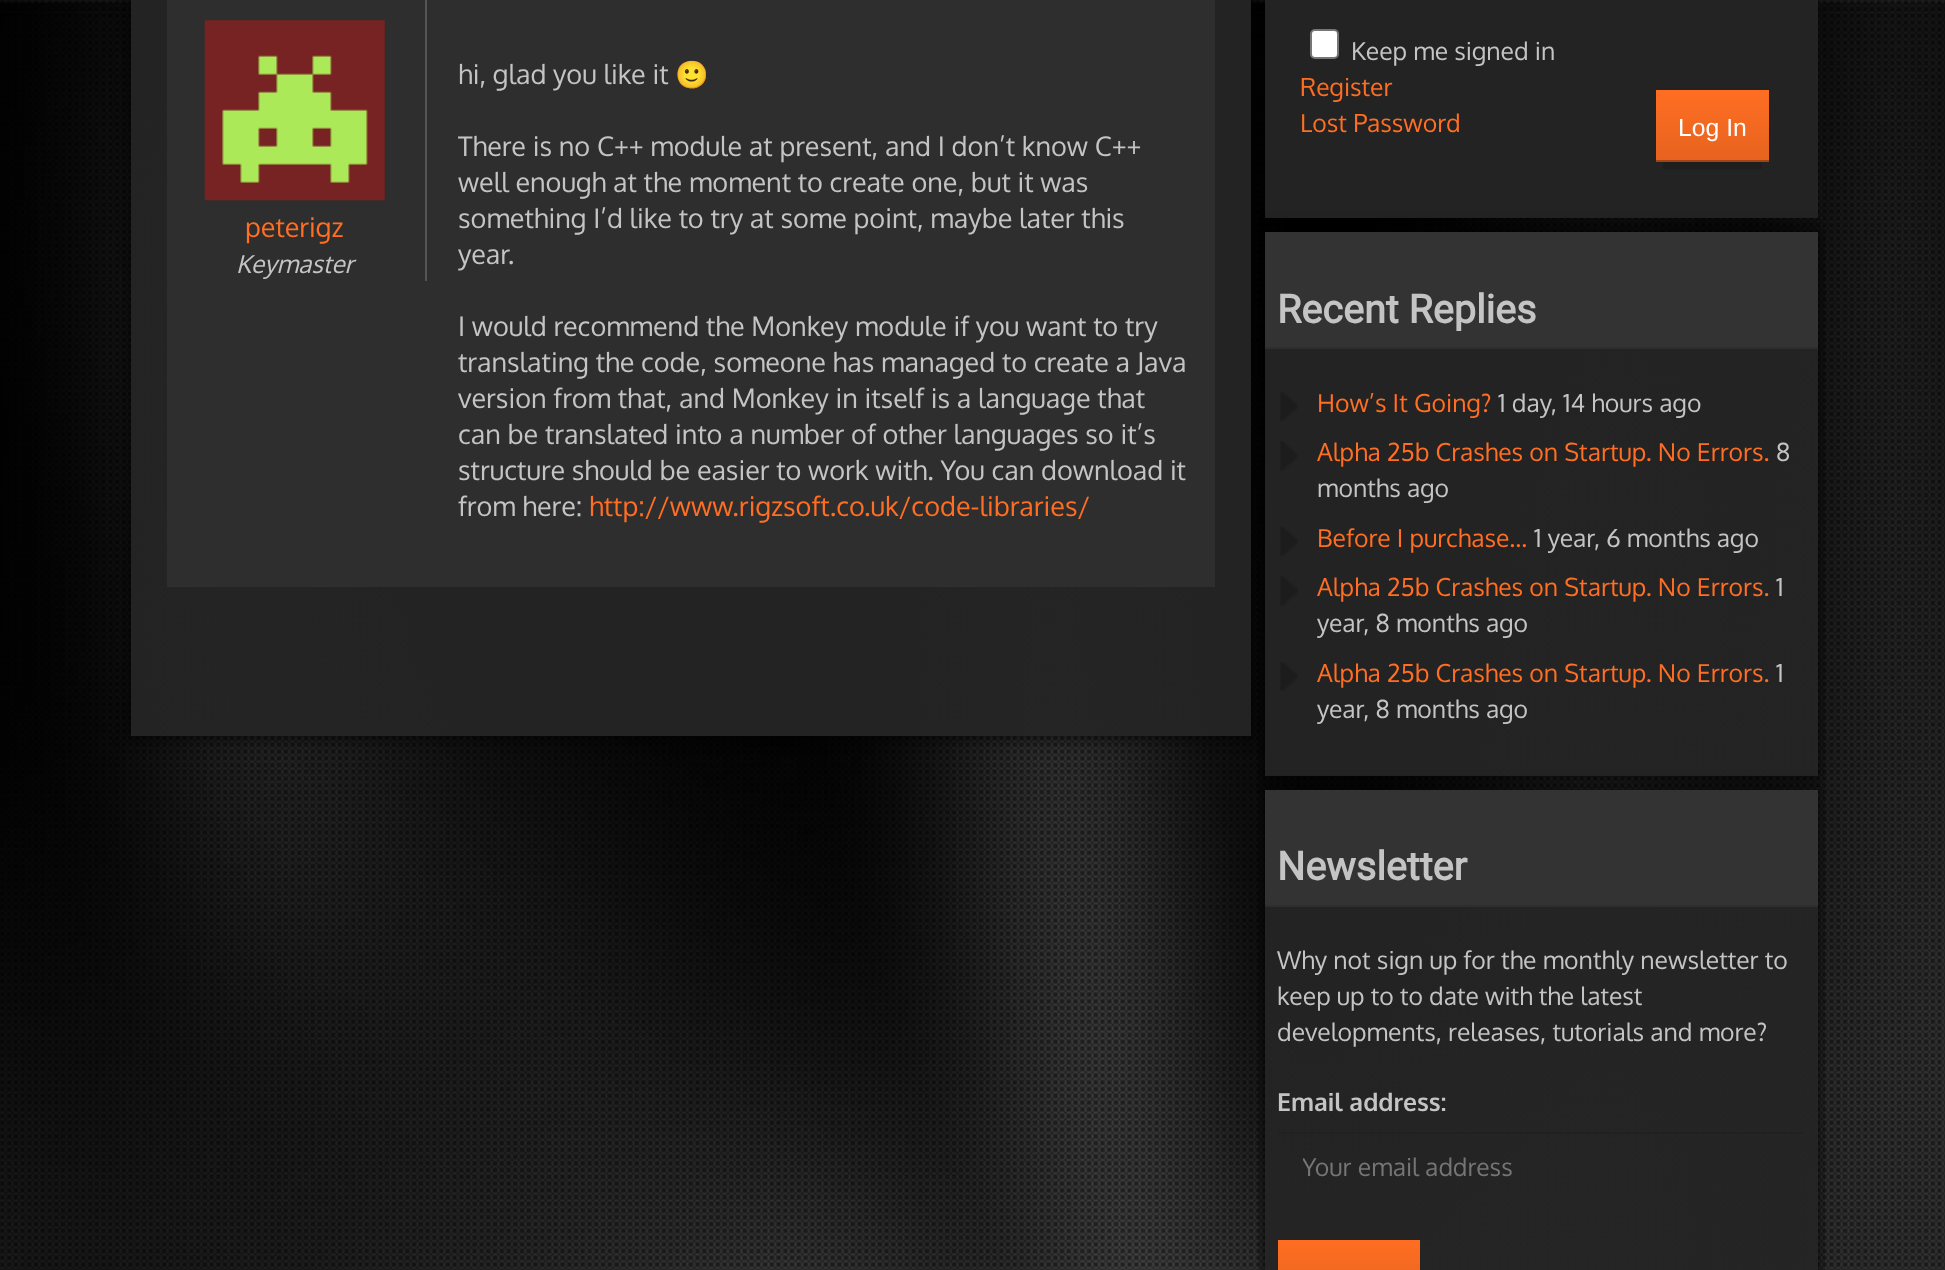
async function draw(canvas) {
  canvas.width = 1945
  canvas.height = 1270
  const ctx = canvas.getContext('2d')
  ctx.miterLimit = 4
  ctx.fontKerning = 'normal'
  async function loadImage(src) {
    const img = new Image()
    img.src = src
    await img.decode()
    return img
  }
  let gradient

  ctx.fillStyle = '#fff'
  ctx.fillRect(0, 0, 1945, 1270)
  ctx.drawImage(await loadImage('image0.png'), 0, 0, 1945, 1270)
  ctx.drawImage(await loadImage('image1.png'), 0, 0, 1945, 1270)
  ctx.save()
  ctx.beginPath()
  ctx.moveTo(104, 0)
  ctx.lineTo(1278, 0)
  ctx.lineTo(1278, 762)
  ctx.lineTo(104, 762)
  ctx.closePath()
  ctx.moveTo(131, -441)
  ctx.lineTo(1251, -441)
  ctx.lineTo(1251, 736)
  ctx.lineTo(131, 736)
  ctx.closePath()
  ctx.clip('evenodd')
  ctx.fillStyle = '#00000080'
  ctx.filter = 'blur(7px)'
  ctx.beginPath()
  ctx.rect(126, -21, 1130, 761)
  ctx.fill()
  ctx.filter = 'none'
  ctx.restore()
  ctx.fillStyle = '#252525f2'
  ctx.fillRect(131, 0, 1120, 736)
  ctx.fillStyle = '#2e2e2e'
  ctx.fillRect(167, 0, 1048, 587)
  ctx.fillStyle = '#555'
  ctx.fillRect(425, 0, 2, 281)
  ctx.drawImage(await loadImage('image2.png'), 204, 20, 181, 181)
  ctx.font = '27px Oxygen'
  ctx.fillStyle = '#ff6e22'
  ctx.fillText('peterigz', 245, 237)
  ctx.font = 'italic 24.75px Oxygen'
  ctx.fillStyle = '#c4c4c4'
  ctx.fillText('Keymaster', 236, 273)
  ctx.font = '27px Oxygen'
  ctx.fillText('hi, glad you like it', 458, 84)
  ctx.font = '27px Noto Color Emoji'
  ctx.fillText('🙂', 675, 84)
  ctx.font = '27px Oxygen'
  ctx.fillText('There is no C++ module at present, and I don’t know C++', 458, 156)
  ctx.fillText('well enough at the moment to create one, but it was', 458, 192)
  ctx.fillText('something I’d like to try at some point, maybe later this', 458, 228)
  ctx.fillText('year.', 458, 264)
  ctx.fillText('I would recommend the Monkey module if you want to try', 458, 336)
  ctx.fillText('translating the code, someone has managed to create a Java', 458, 372)
  ctx.fillText('version from that, and Monkey in itself is a language that', 458, 408)
  ctx.fillText('can be translated into a number of other languages so it’s', 458, 444)
  ctx.fillText('structure should be easier to work with. You can download it', 458, 480)
  ctx.fillText('from here:', 458, 516)
  ctx.fillStyle = '#ff6e22'
  ctx.fillText('http://www.rigzsoft.co.uk/code-libraries/', 589, 516)
  ctx.fillStyle = '#252525f2'
  ctx.fillRect(1265, 0, 553, 218)
  ctx.fillStyle = '#fff'
  ctx.beginPath()
  ctx.roundRect(1311, 30, 27, 28, 4)
  ctx.fill()
  ctx.strokeStyle = '#767676'
  ctx.lineWidth = 2
  ctx.stroke()
  ctx.font = '24.75px Oxygen'
  ctx.fillStyle = '#c4c4c4'
  ctx.fillText('Keep me signed in', 1351, 60)
  ctx.fillStyle = '#ff6e22'
  ctx.fillText('Register', 1300, 96)
  ctx.fillText('Lost Password', 1300, 132)
  ctx.fillStyle = '#1e1e1e'
  ctx.fillRect(1663, 162, 99, 7)
  gradient = ctx.createLinearGradient(1712, 90, 1712, 162)
  gradient.addColorStop(0, '#ff6e22')
  gradient.addColorStop(1, '#e6631f')
  ctx.fillStyle = gradient
  ctx.fillRect(1656, 90, 113, 70)
  ctx.fillStyle = '#a14516'
  ctx.fillRect(1656, 160, 113, 2)
  ctx.font = '24.75px Liberation Sans'
  ctx.fillStyle = '#fff'
  ctx.fillText('Log In', 1678, 136)
  ctx.save()
  ctx.beginPath()
  ctx.rect(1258, 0, 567, 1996)
  ctx.clip()
  ctx.beginPath()
  ctx.moveTo(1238, 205)
  ctx.lineTo(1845, 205)
  ctx.lineTo(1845, 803)
  ctx.lineTo(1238, 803)
  ctx.closePath()
  ctx.moveTo(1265, 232)
  ctx.lineTo(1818, 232)
  ctx.lineTo(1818, 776)
  ctx.lineTo(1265, 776)
  ctx.closePath()
  ctx.clip('evenodd')
  ctx.fillStyle = '#00000080'
  ctx.filter = 'blur(7px)'
  ctx.beginPath()
  ctx.rect(1260, 227, 563, 554)
  ctx.fill()
  ctx.filter = 'none'
  ctx.restore()
  ctx.fillStyle = '#252525f2'
  ctx.fillRect(1265, 349, 553, 427)
  ctx.fillStyle = '#333'
  ctx.fillRect(1265, 232, 553, 115)
  ctx.fillStyle = '#2e2e2e'
  ctx.fillRect(1265, 347, 553, 2)
  ctx.font = 'bold 39.5px Roboto'
  ctx.fillStyle = '#c4c4c4'
  ctx.fillText('Recent Replies', 1277, 323)
  ctx.drawImage(await loadImage('image3.png'), 1280, 392, 18, 29)
  ctx.font = '24.75px Oxygen'
  ctx.fillStyle = '#ff6e22'
  ctx.fillText('How’s It Going?', 1317, 412)
  ctx.fillStyle = '#c4c4c4'
  ctx.fillText('1 day, 14 hours ago', 1498, 412)
  ctx.drawImage(await loadImage('image4.png'), 1280, 441, 18, 30)
  ctx.fillStyle = '#ff6e22'
  ctx.fillText('Alpha 25b Crashes on Startup. No Errors.', 1317, 461)
  ctx.fillStyle = '#c4c4c4'
  ctx.fillText('8', 1776, 461)
  ctx.fillText('months ago', 1317, 497)
  ctx.drawImage(await loadImage('image5.png'), 1280, 527, 18, 29)
  ctx.fillStyle = '#ff6e22'
  ctx.fillText('Before I purchase…', 1317, 547)
  ctx.fillStyle = '#c4c4c4'
  ctx.fillText('1 year, 6 months ago', 1534, 547)
  ctx.drawImage(await loadImage('image6.png'), 1280, 576, 18, 30)
  ctx.fillStyle = '#ff6e22'
  ctx.fillText('Alpha 25b Crashes on Startup. No Errors.', 1317, 596)
  ctx.fillStyle = '#c4c4c4'
  ctx.fillText('1', 1776, 596)
  ctx.fillText('year, 8 months ago', 1317, 632)
  ctx.drawImage(await loadImage('image7.png'), 1280, 662, 18, 29)
  ctx.fillStyle = '#ff6e22'
  ctx.fillText('Alpha 25b Crashes on Startup. No Errors.', 1317, 682)
  ctx.fillStyle = '#c4c4c4'
  ctx.fillText('1', 1776, 682)
  ctx.fillText('year, 8 months ago', 1317, 718)
  ctx.save()
  ctx.beginPath()
  ctx.rect(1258, 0, 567, 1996)
  ctx.clip()
  ctx.beginPath()
  ctx.moveTo(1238, 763)
  ctx.lineTo(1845, 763)
  ctx.lineTo(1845, 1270)
  ctx.lineTo(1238, 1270)
  ctx.closePath()
  ctx.moveTo(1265, 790)
  ctx.lineTo(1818, 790)
  ctx.lineTo(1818, 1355)
  ctx.lineTo(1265, 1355)
  ctx.closePath()
  ctx.clip('evenodd')
  ctx.fillStyle = '#00000080'
  ctx.filter = 'blur(7px)'
  ctx.beginPath()
  ctx.rect(1260, 785, 563, 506)
  ctx.fill()
  ctx.filter = 'none'
  ctx.restore()
  ctx.fillStyle = '#252525f2'
  ctx.fillRect(1265, 907, 553, 363)
  ctx.fillStyle = '#333'
  ctx.fillRect(1265, 790, 553, 115)
  ctx.fillStyle = '#2e2e2e'
  ctx.fillRect(1265, 905, 553, 2)
  ctx.font = 'bold 39.5px Roboto'
  ctx.fillStyle = '#c4c4c4'
  ctx.fillText('Newsletter', 1277, 880)
  ctx.font = '24.75px Oxygen'
  ctx.fillText('Why not sign up for the monthly newsletter to', 1277, 969)
  ctx.fillText('keep up to to date with the latest', 1277, 1005)
  ctx.fillText('developments, releases, tutorials and more?', 1277, 1041)
  ctx.font = 'bold 24.75px Oxygen'
  ctx.fillText('Email address:', 1277, 1111)
  ctx.fillStyle = '#212121'
  ctx.beginPath()
  ctx.moveTo(1278, 1132)
  ctx.lineTo(1804, 1132)
  ctx.lineTo(1802, 1134)
  ctx.lineTo(1280, 1134)
  ctx.closePath()
  ctx.fill()
  ctx.save()
  ctx.beginPath()
  ctx.rect(1303, 1152, 477, 32)
  ctx.clip()
  ctx.font = '24.75px Oxygen'
  ctx.fillStyle = '#757575'
  ctx.fillText('Your email address', 1302, 1176)
  ctx.restore()
  gradient = ctx.createLinearGradient(1349, 1240, 1349, 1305)
  gradient.addColorStop(0, '#ff6e22')
  gradient.addColorStop(1, '#e6631f')
  ctx.fillStyle = gradient
  ctx.fillRect(1278, 1240, 142, 30)
}

draw(document.querySelector('canvas'))
